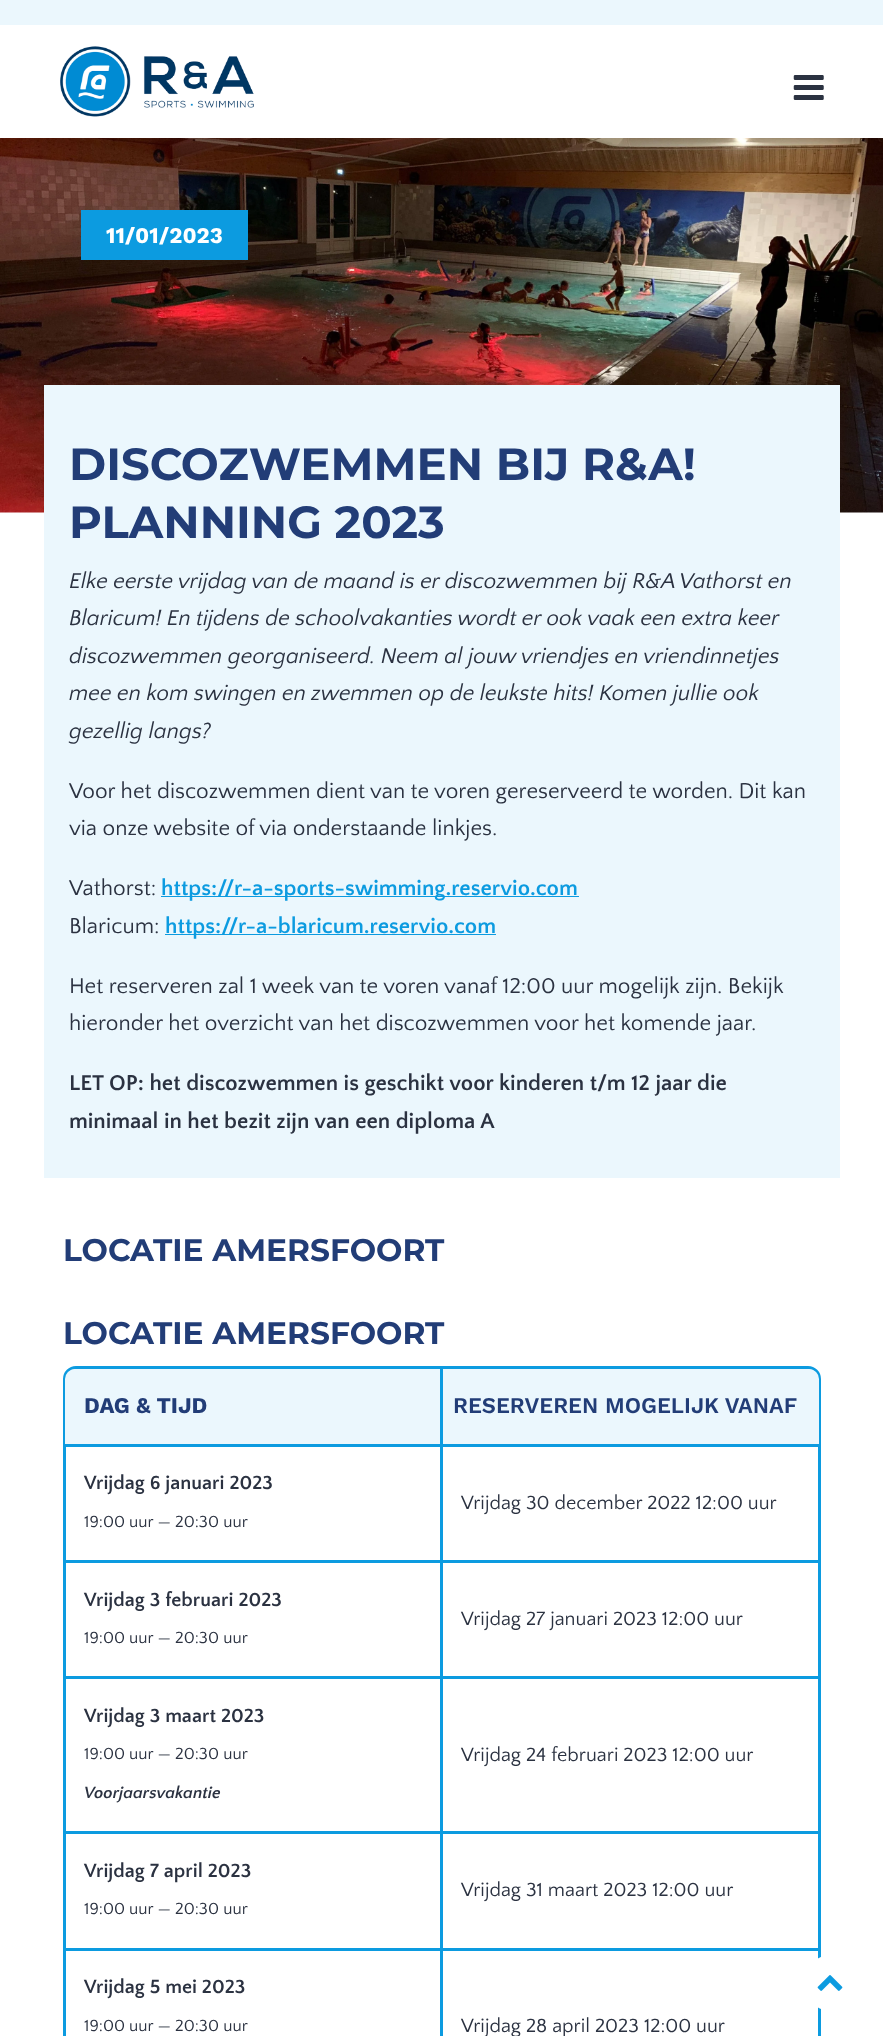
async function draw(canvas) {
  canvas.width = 883
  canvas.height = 2036
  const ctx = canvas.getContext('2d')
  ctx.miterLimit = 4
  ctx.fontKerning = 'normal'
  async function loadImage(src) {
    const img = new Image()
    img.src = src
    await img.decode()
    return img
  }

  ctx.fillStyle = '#fff'
  ctx.fillRect(0, 0, 883, 2036)
  ctx.fillStyle = '#ebf7fd'
  ctx.fillRect(0, 0, 883, 25)
  ctx.drawImage(await loadImage('image0.png'), 60, 46, 194, 71)
  ctx.drawImage(await loadImage('image1.png'), 793, 75, 31, 25)
  ctx.drawImage(await loadImage('image2.png'), 0, 138, 883, 375)
  ctx.fillStyle = '#0c9be0'
  ctx.fillRect(81, 210, 167, 50)
  ctx.font = 'bold 22.5px Kantumruy Pro'
  ctx.fillStyle = '#fff'
  ctx.fillText('11/01/2023', 106, 243)
  ctx.fillStyle = '#ebf7fd'
  ctx.fillRect(44, 385, 796, 793)
  ctx.font = 'bold 45px Montserrat'
  ctx.fillStyle = '#223d77'
  ctx.fillText('DISCOZWEMMEN BIJ R&A!', 69, 480)
  ctx.fillText('PLANNING 2023', 69, 538)
  ctx.font = 'italic 22.5px Quattrocento Sans'
  ctx.fillStyle = '#2b3241'
  ctx.fillText('Elke eerste vrijdag van de maand is er discozwemmen bij R&A Vathorst en', 69, 588)
  ctx.fillText('Blaricum! En tijdens de schoolvakanties wordt er ook vaak een extra keer', 69, 625)
  ctx.fillText('discozwemmen georganiseerd. Neem al jouw vriendjes en vriendinnetjes', 69, 663)
  ctx.fillText('mee en kom swingen en zwemmen op de leukste hits! Komen jullie ook', 69, 700)
  ctx.fillText('gezellig langs?', 69, 738)
  ctx.font = '22.5px Quattrocento Sans'
  ctx.fillText('Voor het discozwemmen dient van te voren gereserveerd te worden. Dit kan', 69, 798)
  ctx.fillText('via onze website of via onderstaande linkjes.', 69, 835)
  ctx.fillText('Vathorst:', 69, 895)
  ctx.fillStyle = '#0c9be0'
  ctx.fillRect(161, 896, 418, 1)
  ctx.font = 'bold 22.5px Quattrocento Sans'
  ctx.fillText('https://r-a-sports-swimming.reservio.com', 161, 895)
  ctx.font = '22.5px Quattrocento Sans'
  ctx.fillStyle = '#2b3241'
  ctx.fillText('Blaricum:', 69, 933)
  ctx.fillStyle = '#0c9be0'
  ctx.fillRect(165, 934, 331, 1)
  ctx.font = 'bold 22.5px Quattrocento Sans'
  ctx.fillText('https://r-a-blaricum.reservio.com', 165, 933)
  ctx.font = '22.5px Quattrocento Sans'
  ctx.fillStyle = '#2b3241'
  ctx.fillText('Het reserveren zal 1 week van te voren vanaf 12:00 uur mogelijk zijn. Bekijk', 69, 993)
  ctx.fillText('hieronder het overzicht van het discozwemmen voor het komende jaar.', 69, 1030)
  ctx.font = 'bold 22.5px Quattrocento Sans'
  ctx.fillText('LET OP: het discozwemmen is geschikt voor kinderen t/m 12 jaar die', 69, 1090)
  ctx.fillText('minimaal in het bezit zijn van een diploma A', 69, 1128)
  ctx.font = 'bold 31.25px Montserrat'
  ctx.fillStyle = '#223d77'
  ctx.fillText('LOCATIE AMERSFOORT', 63, 1261)
  ctx.fillText('LOCATIE AMERSFOORT', 63, 1344)
  ctx.beginPath()
  ctx.roundRect(64.5, 1367.5, 755, 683, 11.5)
  ctx.strokeStyle = '#0c9be0'
  ctx.lineWidth = 3
  ctx.stroke()
  ctx.fillStyle = '#ebf7fd'
  ctx.beginPath()
  ctx.roundRect(65, 1369, 378, 77, [10, 0, 0, 0])
  ctx.fill()
  ctx.fillStyle = '#0c9be0'
  ctx.fillRect(440, 1369, 3, 77)
  ctx.fillRect(65, 1444, 378, 3)
  ctx.font = 'bold 22.5px Kantumruy Pro'
  ctx.fillStyle = '#223d77'
  ctx.fillText('DAG & TIJD', 84, 1413)
  ctx.fillStyle = '#ebf7fd'
  ctx.beginPath()
  ctx.roundRect(443, 1369, 376, 77, [0, 10, 0, 0])
  ctx.fill()
  ctx.fillStyle = '#0c9be0'
  ctx.fillRect(443, 1444, 376, 3)
  ctx.font = '600 22.5px Kantumruy Pro'
  ctx.fillStyle = '#223d77'
  ctx.fillText('RESERVEREN MOGELIJK VANAF', 453, 1413)
  ctx.fillStyle = '#0c9be0'
  ctx.fillRect(440, 1446, 3, 504)
  ctx.fillRect(65, 1560, 754, 3)
  ctx.font = 'bold 20px Quattrocento Sans'
  ctx.fillStyle = '#2b3241'
  ctx.fillText('Vrijdag 6 januari 2023', 84, 1489)
  ctx.font = '17px Quattrocento Sans'
  ctx.fillText('19:00 uur — 20:30 uur', 84, 1527)
  ctx.font = '20px Quattrocento Sans'
  ctx.fillText('Vrijdag 30 december 2022 12:00 uur', 461, 1509)
  ctx.fillStyle = '#0c9be0'
  ctx.fillRect(65, 1676, 754, 3)
  ctx.font = 'bold 20px Quattrocento Sans'
  ctx.fillStyle = '#2b3241'
  ctx.fillText('Vrijdag 3 februari 2023', 84, 1606)
  ctx.font = '17px Quattrocento Sans'
  ctx.fillText('19:00 uur — 20:30 uur', 84, 1643)
  ctx.font = '20px Quattrocento Sans'
  ctx.fillText('Vrijdag 27 januari 2023 12:00 uur', 461, 1625)
  ctx.fillStyle = '#0c9be0'
  ctx.fillRect(65, 1831, 754, 3)
  ctx.font = 'bold 20px Quattrocento Sans'
  ctx.fillStyle = '#2b3241'
  ctx.fillText('Vrijdag 3 maart 2023', 84, 1722)
  ctx.font = '17px Quattrocento Sans'
  ctx.fillText('19:00 uur — 20:30 uur', 84, 1759)
  ctx.font = 'italic bold 17px Quattrocento Sans'
  ctx.fillText('Voorjaarsvakantie', 84, 1798)
  ctx.font = '20px Quattrocento Sans'
  ctx.fillText('Vrijdag 24 februari 2023 12:00 uur', 461, 1761)
  ctx.fillStyle = '#0c9be0'
  ctx.fillRect(65, 1948, 754, 3)
  ctx.font = 'bold 20px Quattrocento Sans'
  ctx.fillStyle = '#2b3241'
  ctx.fillText('Vrijdag 7 april 2023', 84, 1877)
  ctx.font = '17px Quattrocento Sans'
  ctx.fillText('19:00 uur — 20:30 uur', 84, 1914)
  ctx.font = '20px Quattrocento Sans'
  ctx.fillText('Vrijdag 31 maart 2023 12:00 uur', 461, 1896)
  ctx.fillStyle = '#0c9be0'
  ctx.fillRect(440, 1950, 3, 86)
  ctx.font = 'bold 20px Quattrocento Sans'
  ctx.fillStyle = '#2b3241'
  ctx.fillText('Vrijdag 5 mei 2023', 84, 1993)
  ctx.font = '17px Quattrocento Sans'
  ctx.fillText('19:00 uur — 20:30 uur', 84, 2031)
  ctx.font = '20px Quattrocento Sans'
  ctx.fillText('Vrijdag 28 april 2023 12:00 uur', 461, 2032)
  ctx.fillStyle = '#fff'
  ctx.beginPath()
  ctx.arc(831, 1983, 28, 0, 2 * Math.PI)
  ctx.fill()
  ctx.drawImage(await loadImage('image3.png'), 817, 1975, 26, 16)
}

draw(document.querySelector('canvas'))
